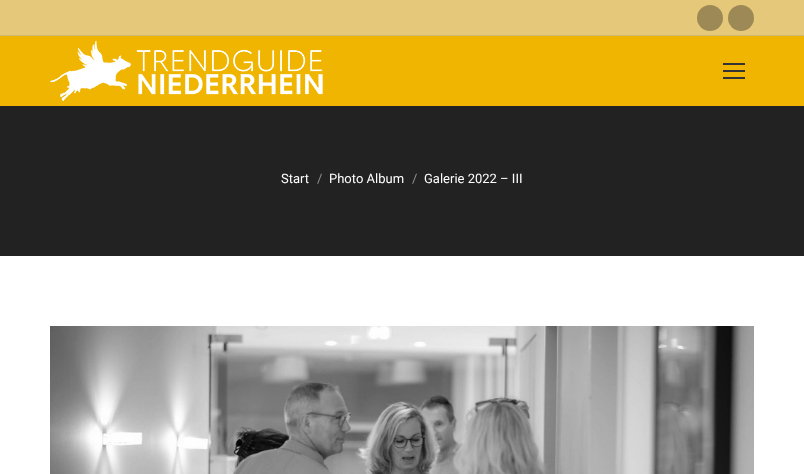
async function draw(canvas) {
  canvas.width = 804
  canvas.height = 474
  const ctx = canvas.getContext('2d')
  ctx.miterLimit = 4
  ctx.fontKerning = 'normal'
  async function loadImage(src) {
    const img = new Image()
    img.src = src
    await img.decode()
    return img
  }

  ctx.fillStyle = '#fff'
  ctx.fillRect(0, 0, 804, 474)
  ctx.fillStyle = '#f0b500'
  ctx.fillRect(0, 36, 804, 70)
  ctx.fillStyle = '#e5c87a'
  ctx.fillRect(0, 0, 804, 35)
  ctx.fillStyle = '#9d8955'
  ctx.beginPath()
  ctx.arc(710, 18, 13, 0, 2 * Math.PI)
  ctx.fill()
  ctx.beginPath()
  ctx.arc(741, 18, 13, 0, 2 * Math.PI)
  ctx.fill()
  ctx.fillStyle = '#d1b872'
  ctx.fillRect(0, 35, 804, 1)
  ctx.drawImage(await loadImage('image0.png'), 50, 41, 273, 60)
  ctx.fillStyle = '#333'
  ctx.fillRect(723, 63, 22, 2)
  ctx.fillRect(723, 70, 22, 2)
  ctx.fillRect(723, 77, 22, 2)
  ctx.fillStyle = '#222'
  ctx.fillRect(0, 106, 804, 150)
  ctx.font = '13px Roboto'
  ctx.fillStyle = '#fff'
  ctx.fillText('Start', 281, 183)
  ctx.fillStyle = '#919191'
  ctx.fillText('/', 317, 183)
  ctx.fillStyle = '#fff'
  ctx.fillText('Photo Album', 329, 183)
  ctx.fillStyle = '#919191'
  ctx.fillText('/', 412, 183)
  ctx.fillStyle = '#fff'
  ctx.fillText('Galerie 2022 – III', 424, 183)
  ctx.drawImage(await loadImage('image1.png'), 50, 326, 704, 148)
}

draw(document.querySelector('canvas'))
